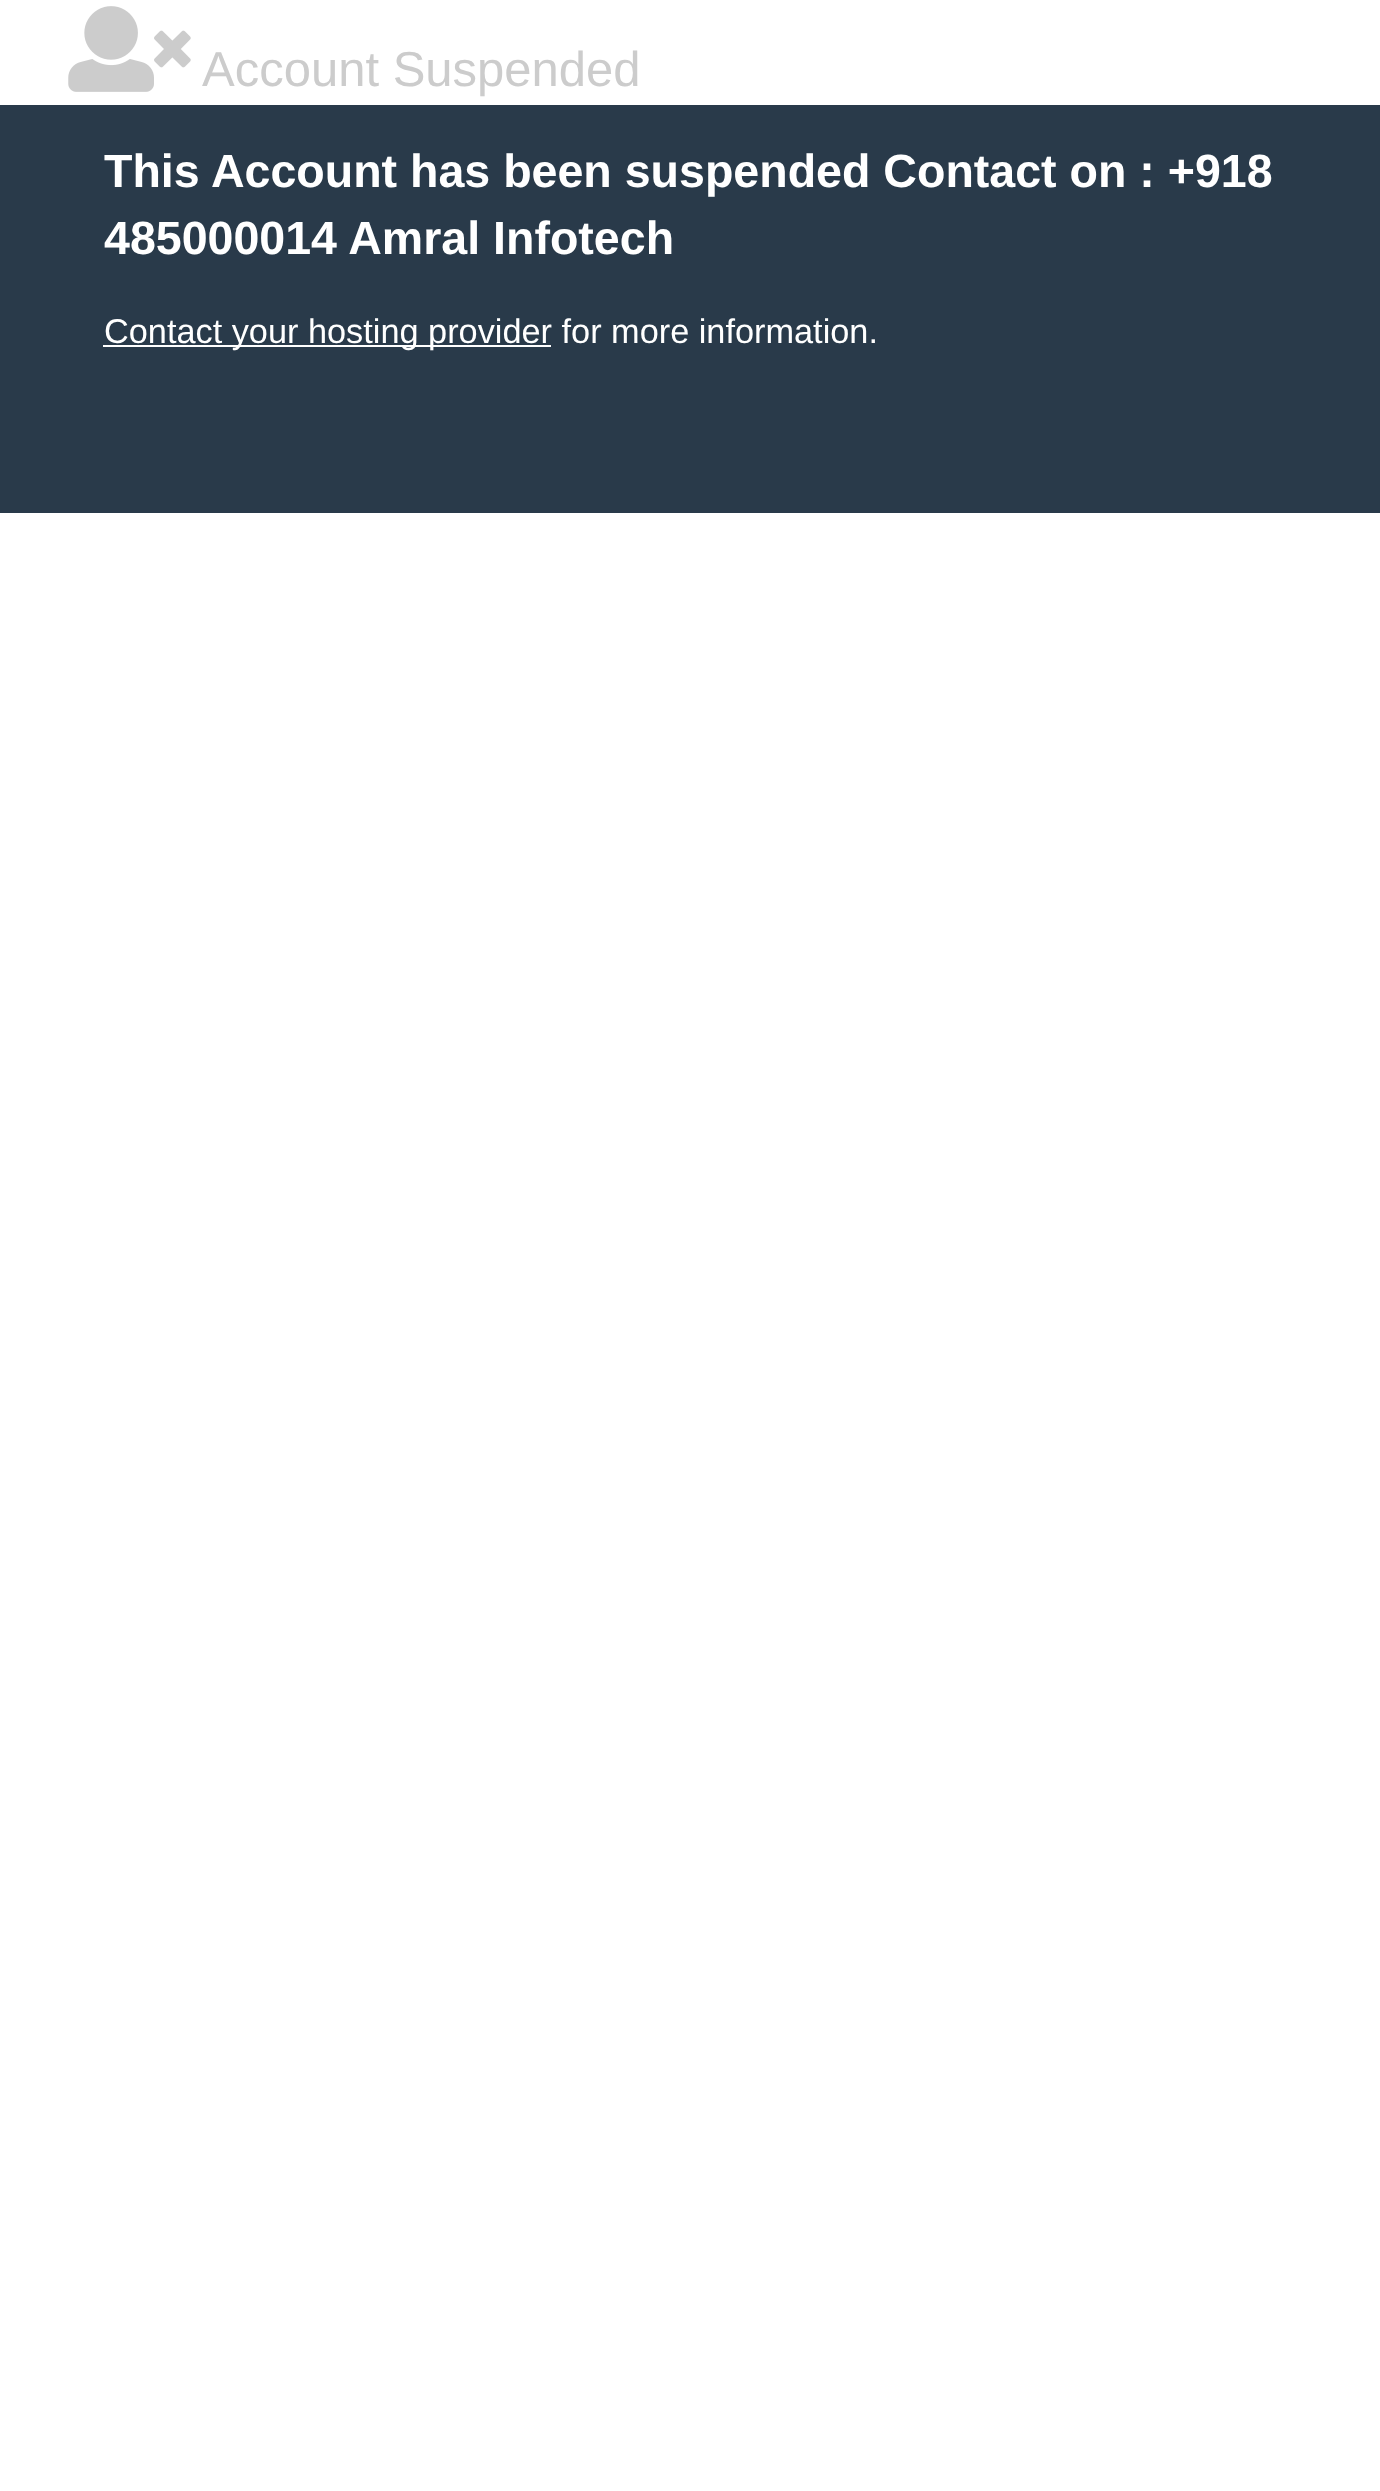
async function draw(canvas) {
  canvas.width = 1380
  canvas.height = 2491
  const ctx = canvas.getContext('2d')
  ctx.miterLimit = 4
  ctx.fontKerning = 'normal'
  async function loadImage(src) {
    const img = new Image()
    img.src = src
    await img.decode()
    return img
  }

  ctx.fillStyle = '#fff'
  ctx.fillRect(0, 0, 1380, 2491)
  ctx.drawImage(await loadImage('image0.png'), 68, 6, 123, 86)
  ctx.font = '49px Liberation Sans'
  ctx.fillStyle = '#ccc'
  ctx.fillText('Account Suspended', 202, 86)
  ctx.fillStyle = '#293a4a'
  ctx.fillRect(0, 105, 1380, 408)
  ctx.font = 'bold 46.55px Liberation Sans'
  ctx.fillStyle = '#fff'
  ctx.fillText('This Account has been suspended Contact on : +918', 104, 187)
  ctx.fillText('485000014 Amral Infotech', 104, 254)
  ctx.fillRect(103, 345, 448, 2)
  ctx.font = '34.3px Liberation Sans'
  ctx.fillText('Contact your hosting provider for more information.', 104, 343)
}

draw(document.querySelector('canvas'))
